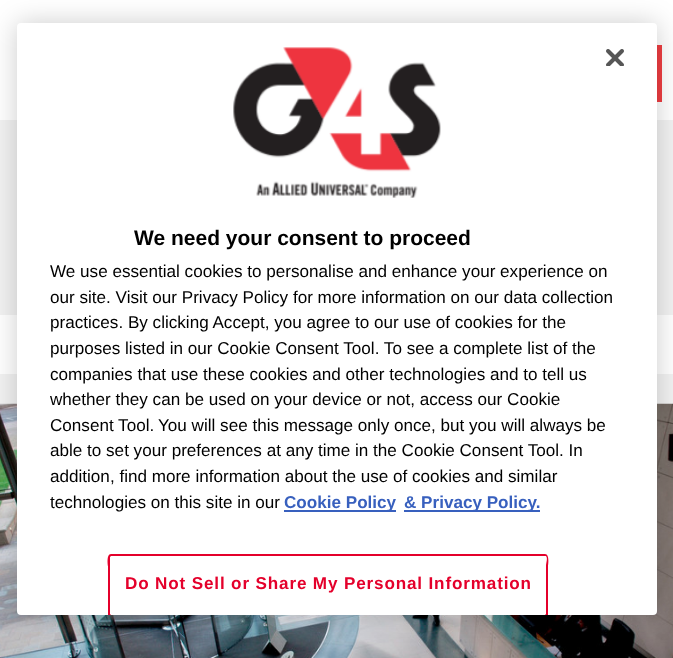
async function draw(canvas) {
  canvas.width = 673
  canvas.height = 658
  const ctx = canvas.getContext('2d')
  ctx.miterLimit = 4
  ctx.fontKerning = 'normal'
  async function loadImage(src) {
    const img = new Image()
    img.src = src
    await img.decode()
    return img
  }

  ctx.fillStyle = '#fff'
  ctx.fillRect(0, 0, 673, 658)
  ctx.fillStyle = '#ef3e42'
  ctx.fillRect(657, 45, 5, 57)
  ctx.fillStyle = '#f2f2f2'
  ctx.fillRect(0, 120, 673, 195)
  ctx.fillRect(0, 374, 673, 30)
  ctx.drawImage(await loadImage('image0.png'), 0, 403, 673, 255)
  ctx.fillStyle = '#00000033'
  ctx.filter = 'blur(13.5px)'
  ctx.beginPath()
  ctx.roundRect(17, 23, 640, 592, 4)
  ctx.fill()
  ctx.filter = 'none'
  ctx.fillStyle = '#fff'
  ctx.beginPath()
  ctx.roundRect(17, 23, 640, 592, 4)
  ctx.fill()
  ctx.drawImage(await loadImage('image1.png'), 606, 49, 18, 17)
  ctx.drawImage(await loadImage('image2.png'), 233, 47, 208, 151)
  ctx.font = 'bold 21px Liberation Sans'
  ctx.fillStyle = '#000'
  ctx.fillText('We need your consent to proceed', 134, 245)
  ctx.font = '17.1px Liberation Sans'
  ctx.fillText('We use essential cookies to personalise and enhance your experience on', 50, 277)
  ctx.fillText('our site. Visit our Privacy Policy for more information on our data collection', 50, 303)
  ctx.fillText('practices. By clicking Accept, you agree to our use of cookies for the', 50, 328)
  ctx.fillText('purposes listed in our Cookie Consent Tool. To see a complete list of the', 50, 354)
  ctx.fillText('companies that use these cookies and other technologies and to tell us', 50, 380)
  ctx.fillText('whether they can be used on your device or not, access our Cookie', 50, 405)
  ctx.fillText('Consent Tool.', 50, 431)
  ctx.fillText('You will see this message only once, but you will always be', 158, 431)
  ctx.fillText('able to set your preferences at any time in the Cookie Consent Tool. In', 50, 456)
  ctx.fillText('addition, find more information about the use of cookies and similar', 50, 482)
  ctx.fillText('technologies on this site in our', 50, 508)
  ctx.fillStyle = '#3860be'
  ctx.fillRect(284, 510, 112, 2)
  ctx.font = 'bold 17.1px Liberation Sans'
  ctx.fillText('Cookie Policy', 284, 508)
  ctx.fillRect(404, 510, 136, 2)
  ctx.fillText('& Privacy Policy.', 404, 508)
  ctx.fillStyle = '#e4002b'
  ctx.beginPath()
  ctx.moveTo(111, 554)
  ctx.bezierCurveTo(106, 554, 108, 566, 108, 566)
  ctx.lineTo(108, 615)
  ctx.lineTo(111, 615)
  ctx.lineTo(110, 614)
  ctx.lineTo(110, 557)
  ctx.lineTo(111, 556)
  ctx.lineTo(546, 556)
  ctx.bezierCurveTo(548, 558, 546, 563, 546, 566)
  ctx.lineTo(546, 614)
  ctx.lineTo(545, 615)
  ctx.lineTo(548, 615)
  ctx.lineTo(548, 566)
  ctx.bezierCurveTo(548, 566, 550, 554, 545, 554)
  ctx.closePath()
  ctx.fill()
  ctx.letterSpacing = '0.85px'
  ctx.fillText('Do Not Sell or Share My Personal Information', 125, 589)
}

draw(document.querySelector('canvas'))
